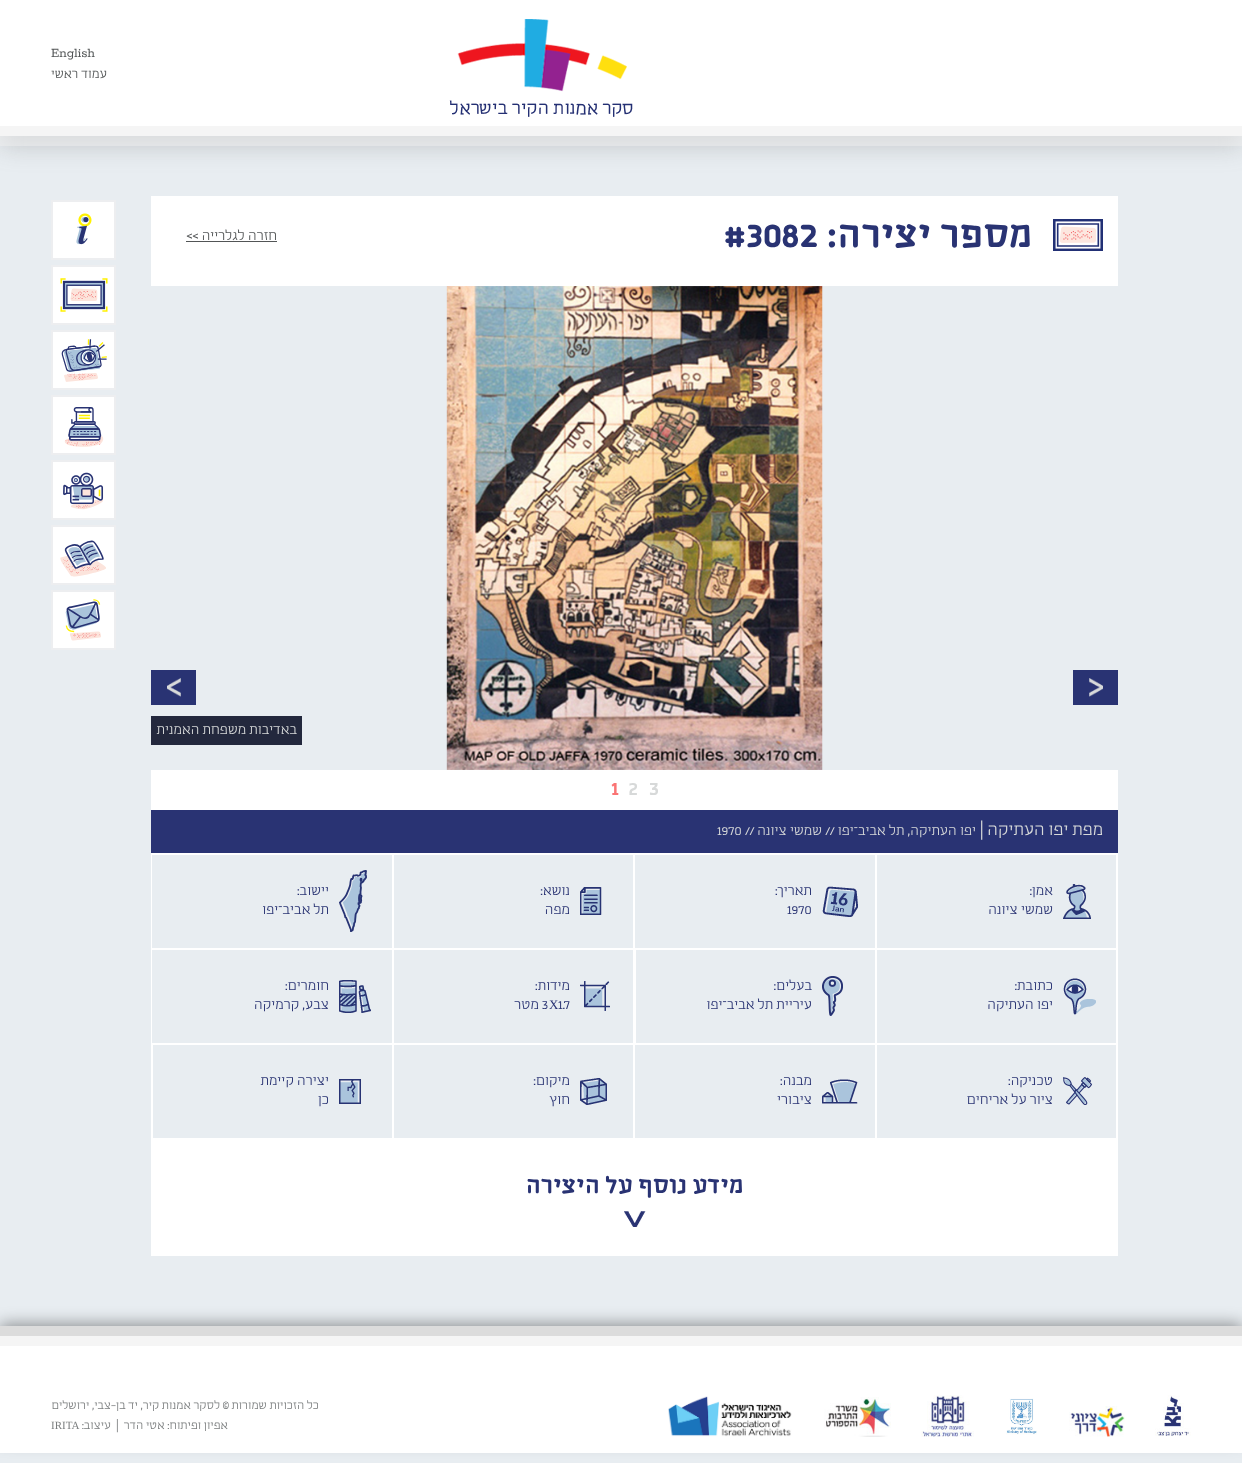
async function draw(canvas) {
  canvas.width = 1242
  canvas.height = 1463
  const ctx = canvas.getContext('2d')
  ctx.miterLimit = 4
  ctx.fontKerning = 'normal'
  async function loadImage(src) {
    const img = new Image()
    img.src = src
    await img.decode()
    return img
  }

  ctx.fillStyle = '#e8edf1'
  ctx.fillRect(0, 0, 1242, 1463)
  ctx.fillStyle = '#6f6f6f4d'
  ctx.filter = 'blur(12px)'
  ctx.beginPath()
  ctx.rect(0, 10, 1242, 136)
  ctx.fill()
  ctx.filter = 'none'
  ctx.fillStyle = '#fff'
  ctx.fillRect(0, 0, 1242, 126)
  ctx.fillStyle = '#f5f5f5'
  ctx.fillRect(0, 126, 1242, 10)
  ctx.strokeStyle = '#f0f0f080'
  ctx.lineWidth = 10
  ctx.strokeRect(-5, -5, 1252, 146)
  ctx.drawImage(await loadImage('image0.png'), 449, 19, 184, 98)
  ctx.font = '600 14px Rokkitt'
  ctx.fillStyle = '#525556'
  ctx.fillText('English', 51, 57)
  ctx.direction = 'rtl'
  ctx.font = '12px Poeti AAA'
  ctx.fillText('עמוד ראשי', 107, 78)
  ctx.fillStyle = '#fff'
  ctx.beginPath()
  ctx.rect(52, 201, 63, 58)
  ctx.fill()
  ctx.strokeStyle = '#edeef0'
  ctx.lineWidth = 2
  ctx.stroke()
  ctx.drawImage(await loadImage('image1.png'), 76, 213, 16, 32)
  ctx.beginPath()
  ctx.rect(52, 266, 63, 58)
  ctx.fill()
  ctx.stroke()
  ctx.drawImage(await loadImage('image2.png'), 60, 278, 48, 34)
  ctx.beginPath()
  ctx.rect(52, 331, 63, 58)
  ctx.fill()
  ctx.stroke()
  ctx.drawImage(await loadImage('image3.png'), 61, 339, 46, 43)
  ctx.beginPath()
  ctx.rect(52, 396, 63, 58)
  ctx.fill()
  ctx.stroke()
  ctx.drawImage(await loadImage('image4.png'), 64, 407, 40, 40)
  ctx.beginPath()
  ctx.rect(52, 461, 63, 58)
  ctx.fill()
  ctx.stroke()
  ctx.drawImage(await loadImage('image5.png'), 63, 472, 41, 38)
  ctx.beginPath()
  ctx.rect(52, 526, 63, 58)
  ctx.fill()
  ctx.stroke()
  ctx.drawImage(await loadImage('image6.png'), 60, 540, 46, 37)
  ctx.beginPath()
  ctx.rect(52, 591, 63, 58)
  ctx.fill()
  ctx.stroke()
  ctx.drawImage(await loadImage('image7.png'), 65, 599, 36, 42)
  ctx.fillRect(151, 196, 967, 1060)
  ctx.drawImage(await loadImage('image8.png'), 1053, 219, 50, 32)
  ctx.font = 'bold 40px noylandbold'
  ctx.fillStyle = '#293373'
  ctx.fillText('מספר יצירה:', 1033, 247)
  ctx.direction = 'ltr'
  ctx.fillText('#3082', 724, 247)
  ctx.direction = 'rtl'
  ctx.font = '13px Poeti AAA'
  ctx.fillStyle = '#525556'
  ctx.fillText('חזרה לגלרייה >>', 277, 240)
  ctx.fillRect(186, 241, 91, 1)
  ctx.drawImage(await loadImage('image11.png'), 151, 286, 967, 484)
  ctx.fillStyle = '#293373'
  ctx.fillRect(1073, 670, 45, 35)
  ctx.drawImage(await loadImage('image9.png'), 1089, 678, 14, 19)
  ctx.fillRect(151, 670, 45, 35)
  ctx.drawImage(await loadImage('image10.png'), 167, 678, 14, 19)
  ctx.fillStyle = '#23283d'
  ctx.fillRect(151, 716, 151, 29)
  ctx.fillStyle = '#d7d9d9'
  ctx.fillText('באדיבות משפחת האמנית', 297, 734)
  ctx.direction = 'ltr'
  ctx.font = 'bold 20px Poeti AAA'
  ctx.fillText('3', 649, 795)
  ctx.fillText('2', 628, 795)
  ctx.fillStyle = '#fa7474'
  ctx.fillText('1', 611, 795)
  ctx.fillStyle = '#293373'
  ctx.fillRect(151, 810, 967, 43)
  ctx.direction = 'rtl'
  ctx.font = '16px Poeti AAA'
  ctx.fillStyle = '#d7d9d9'
  ctx.fillText('מפת יפו העתיקה |', 1103, 835)
  ctx.font = '13px Poeti AAA'
  ctx.fillText('יפו העתיקה, תל אביב־יפו //', 976, 835)
  ctx.fillText('שמשי ציונה //', 822, 835)
  ctx.direction = 'ltr'
  ctx.fillText('1970', 717, 835)
  ctx.fillStyle = '#e8edf1'
  ctx.fillRect(877, 855, 239, 93)
  ctx.drawImage(await loadImage('image12.png'), 1063, 884, 28, 35)
  ctx.direction = 'rtl'
  ctx.fillStyle = '#293373'
  ctx.fillText('אמן:', 1053, 895)
  ctx.fillText('שמשי ציונה', 1053, 914)
  ctx.fillStyle = '#e8edf1'
  ctx.fillRect(635, 855, 240, 93)
  ctx.drawImage(await loadImage('image13.png'), 822, 886, 36, 31)
  ctx.fillStyle = '#293373'
  ctx.fillText('תאריך:', 812, 895)
  ctx.direction = 'ltr'
  ctx.fillText('1970', 787, 914)
  ctx.fillStyle = '#e8edf1'
  ctx.fillRect(394, 855, 239, 93)
  ctx.drawImage(await loadImage('image14.png'), 580, 887, 22, 28)
  ctx.direction = 'rtl'
  ctx.fillStyle = '#293373'
  ctx.fillText('נושא:', 570, 895)
  ctx.fillText('מפה', 570, 914)
  ctx.fillStyle = '#e8edf1'
  ctx.fillRect(152, 855, 240, 93)
  ctx.drawImage(await loadImage('image15.png'), 339, 870, 28, 62)
  ctx.fillStyle = '#293373'
  ctx.fillText('יישוב:', 329, 895)
  ctx.fillText('תל אביב־יפו', 329, 914)
  ctx.fillStyle = '#e8edf1'
  ctx.fillRect(877, 950, 239, 93)
  ctx.drawImage(await loadImage('image16.png'), 1063, 978, 33, 37)
  ctx.fillStyle = '#293373'
  ctx.fillText('כתובת:', 1053, 990)
  ctx.fillText('יפו העתיקה', 1053, 1009)
  ctx.fillStyle = '#e8edf1'
  ctx.fillRect(636, 950, 239, 93)
  ctx.drawImage(await loadImage('image17.png'), 822, 976, 21, 40)
  ctx.fillStyle = '#293373'
  ctx.fillText('בעלים:', 812, 990)
  ctx.fillText('עיריית תל אביב־יפו', 812, 1009)
  ctx.fillStyle = '#e8edf1'
  ctx.fillRect(394, 950, 239, 93)
  ctx.drawImage(await loadImage('image18.png'), 580, 981, 30, 30)
  ctx.fillStyle = '#293373'
  ctx.fillText('מידות:', 570, 990)
  ctx.direction = 'ltr'
  ctx.fillText('1.7', 558, 1009)
  ctx.font = '13px Liberation Serif'
  ctx.fillText('X', 549, 1009)
  ctx.font = '13px Poeti AAA'
  ctx.fillText('3', 542, 1009)
  ctx.direction = 'rtl'
  ctx.fillText('מטר', 539, 1009)
  ctx.fillStyle = '#e8edf1'
  ctx.fillRect(152, 950, 240, 93)
  ctx.drawImage(await loadImage('image19.png'), 339, 980, 32, 33)
  ctx.fillStyle = '#293373'
  ctx.fillText('חומרים:', 329, 990)
  ctx.fillText('צבע, קרמיקה', 329, 1009)
  ctx.fillStyle = '#e8edf1'
  ctx.fillRect(877, 1045, 239, 93)
  ctx.drawImage(await loadImage('image20.png'), 1063, 1077, 29, 28)
  ctx.fillStyle = '#293373'
  ctx.fillText('טכניקה:', 1053, 1085)
  ctx.fillText('ציור על אריחים', 1053, 1104)
  ctx.fillStyle = '#e8edf1'
  ctx.fillRect(635, 1045, 240, 93)
  ctx.drawImage(await loadImage('image21.png'), 822, 1079, 36, 25)
  ctx.fillStyle = '#293373'
  ctx.fillText('מבנה:', 812, 1085)
  ctx.fillText('ציבורי', 812, 1104)
  ctx.fillStyle = '#e8edf1'
  ctx.fillRect(394, 1045, 239, 93)
  ctx.drawImage(await loadImage('image22.png'), 580, 1078, 27, 27)
  ctx.fillStyle = '#293373'
  ctx.fillText('מיקום:', 570, 1085)
  ctx.fillText('חוץ', 570, 1104)
  ctx.fillStyle = '#e8edf1'
  ctx.fillRect(153, 1045, 239, 93)
  ctx.drawImage(await loadImage('image23.png'), 339, 1079, 22, 25)
  ctx.fillStyle = '#293373'
  ctx.fillText('יצירה קיימת', 329, 1085)
  ctx.fillText('כן', 329, 1104)
  ctx.font = 'bold 25px noylandbold'
  ctx.fillText('מידע נוסף על היצירה', 744, 1193)
  ctx.drawImage(await loadImage('image24.png'), 624, 1211, 22, 16)
  ctx.fillStyle = '#00000066'
  ctx.filter = 'blur(8px)'
  ctx.beginPath()
  ctx.rect(0, 1324, 1242, 117)
  ctx.fill()
  ctx.filter = 'none'
  ctx.fillStyle = '#fff'
  ctx.fillRect(0, 1346, 1242, 107)
  ctx.fillStyle = '#f5f5f5'
  ctx.fillRect(0, 1336, 1242, 10)
  ctx.fillStyle = '#dcdcdc'
  ctx.fillRect(0, 1326, 1242, 10)
  ctx.drawImage(await loadImage('image25.png'), 1155, 1395, 36, 41)
  ctx.drawImage(await loadImage('image26.png'), 1069, 1406, 56, 31)
  ctx.drawImage(await loadImage('image27.png'), 1006, 1398, 31, 37)
  ctx.drawImage(await loadImage('image28.png'), 921, 1395, 53, 42)
  ctx.drawImage(await loadImage('image29.png'), 824, 1397, 67, 40)
  ctx.drawImage(await loadImage('image30.png'), 668, 1396, 124, 41)
  ctx.font = '11px Poeti AAA'
  ctx.fillStyle = '#7a7d7e'
  ctx.fillText('כל הזכויות שמורות © לסקר אמנות קיר, יד בן-צבי, ירושלים', 319, 1409)
  ctx.fillText('אפיון ופיתוח: אטי הדר', 228, 1429)
  ctx.direction = 'ltr'
  ctx.fillText('|', 116, 1429)
  ctx.direction = 'rtl'
  ctx.fillText('עיצוב:', 111, 1429)
  ctx.direction = 'ltr'
  ctx.font = '11px Liberation Serif'
  ctx.fillText('IRITA', 51, 1429)
}

draw(document.querySelector('canvas'))
